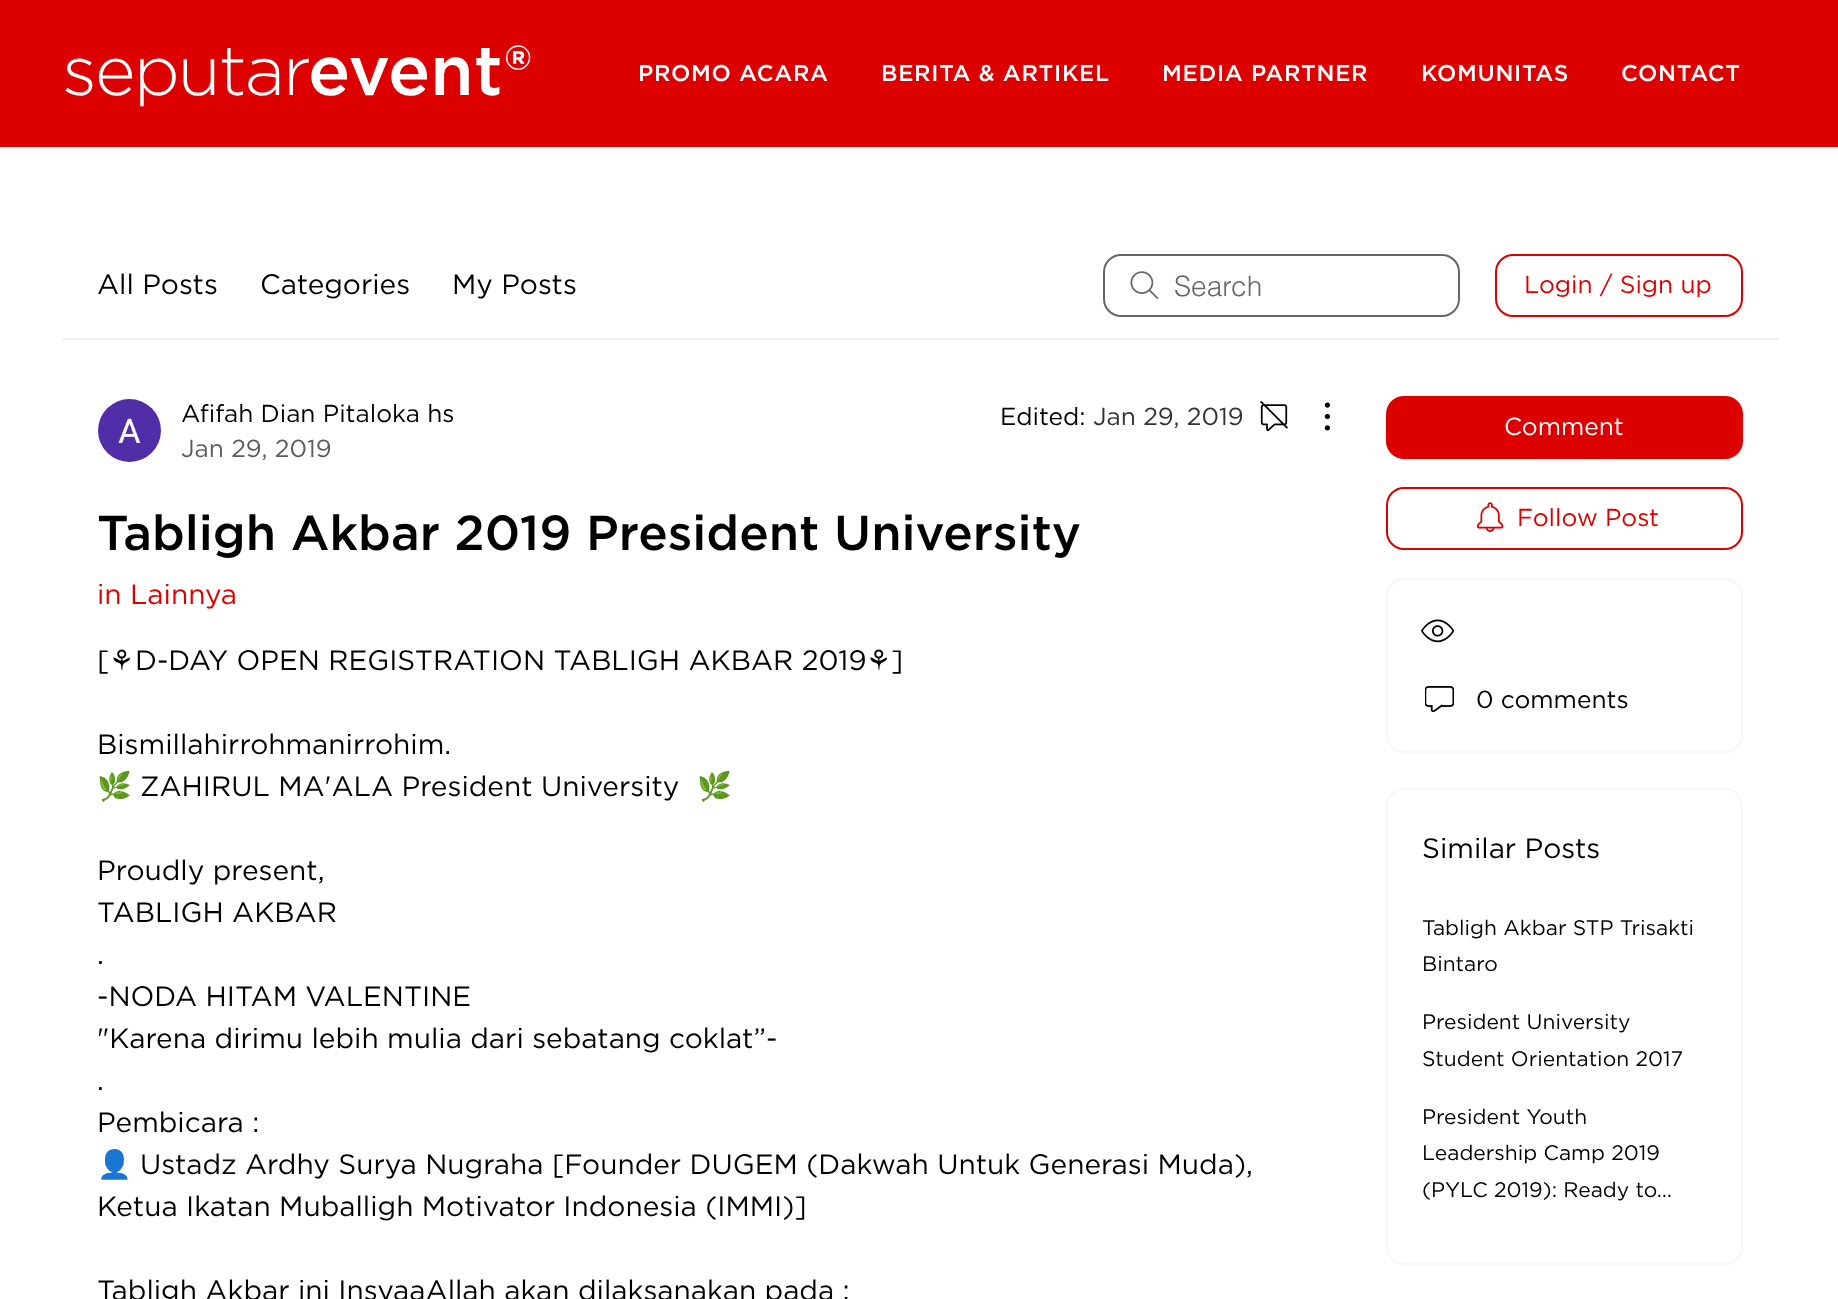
async function draw(canvas) {
  canvas.width = 1838
  canvas.height = 1299
  const ctx = canvas.getContext('2d')
  ctx.miterLimit = 4
  ctx.fontKerning = 'normal'
  async function loadImage(src) {
    const img = new Image()
    img.src = src
    await img.decode()
    return img
  }

  ctx.fillStyle = '#fff'
  ctx.fillRect(0, 0, 1838, 1299)
  ctx.fillStyle = '#d00'
  ctx.fillRect(0, 0, 1838, 147)
  ctx.letterSpacing = '-2px'
  ctx.font = '300 70px Gotham'
  ctx.fillStyle = '#fff'
  ctx.fillText('seputar', 62, 95)
  ctx.letterSpacing = '0px'
  ctx.font = '500 70px Gotham'
  ctx.fillText('even', 308, 95)
  ctx.letterSpacing = '2px'
  ctx.fillText('t®', 474, 95)
  ctx.letterSpacing = '0.7px'
  ctx.font = '500 22.75px Gotham'
  ctx.fillText('PROMO ACARA', 638, 81)
  ctx.fillText('BERITA & ARTIKEL', 881, 81)
  ctx.fillText('MEDIA PARTNER', 1162, 81)
  ctx.fillText('KOMUNITAS', 1421, 81)
  ctx.fillText('CONTACT', 1621, 81)
  ctx.fillStyle = '#ececec'
  ctx.fillRect(63, 338, 1715, 2)
  ctx.letterSpacing = '0px'
  ctx.font = '28px Gotham'
  ctx.fillStyle = '#000'
  ctx.fillText('All Posts', 97, 294)
  ctx.fillText('Categories', 260, 294)
  ctx.fillText('My Posts', 452, 294)
  ctx.drawImage(await loadImage('image0.png'), 1130, 271, 29, 29)
  ctx.beginPath()
  ctx.roundRect(1104, 255, 355, 61, 17)
  ctx.strokeStyle = '#666'
  ctx.lineWidth = 2
  ctx.stroke()
  ctx.font = '300 28px helvetica'
  ctx.fillStyle = '#666'
  ctx.fillText('Search', 1174, 296)
  ctx.beginPath()
  ctx.roundRect(1496, 255, 246, 61, 17)
  ctx.strokeStyle = '#d00'
  ctx.stroke()
  ctx.font = '24.5px Gotham'
  ctx.fillStyle = '#d00'
  ctx.fillText('Login / Sign up', 1524, 293)
  ctx.drawImage(await loadImage('image1.png'), 98, 399, 63, 63)
  ctx.fillStyle = '#000'
  ctx.fillText('Afifah Dian Pitaloka hs', 181, 422)
  ctx.fillStyle = '#5c5c5c'
  ctx.fillText('Jan 29, 2019', 181, 457)
  ctx.fillStyle = '#000'
  ctx.fillText('Edited:', 1000, 425)
  ctx.fillStyle = '#333'
  ctx.fillText('Jan 29, 2019', 1093, 425)
  ctx.drawImage(await loadImage('image2.png'), 1260, 401, 28, 31)
  ctx.drawImage(await loadImage('image3.png'), 1324, 402, 6, 29)
  ctx.font = '500 49px Gotham'
  ctx.fillStyle = '#000'
  ctx.fillText('Tabligh Akbar 2019 President University', 97, 550)
  ctx.font = '28px Gotham'
  ctx.fillStyle = '#d00'
  ctx.fillText('in Lainnya', 97, 604)
  ctx.fillStyle = '#000'
  ctx.fillText('[', 97, 670)
  ctx.font = '28px DejaVu Sans'
  ctx.fillText('⚘', 109, 670)
  ctx.font = '28px Gotham'
  ctx.fillText('D-DAY OPEN REGISTRATION TABLIGH AKBAR 2019', 135, 670)
  ctx.font = '28px DejaVu Sans'
  ctx.fillText('⚘', 866, 670)
  ctx.font = '28px Gotham'
  ctx.fillText(']', 891, 670)
  ctx.fillText('Bismillahirrohmanirrohim.', 97, 754)
  ctx.save()
  ctx.beginPath()
  ctx.rect(98, 641, 1232, 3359)
  ctx.clip()
  ctx.font = '28px Noto Color Emoji'
  ctx.fillText('🌿', 97, 796)
  ctx.restore()
  ctx.fillText('ZAHIRUL MA\'ALA President University', 140, 796)
  ctx.font = '28px Noto Color Emoji'
  ctx.fillText('🌿', 697, 796)
  ctx.font = '28px Gotham'
  ctx.fillText('Proudly present,', 97, 880)
  ctx.fillText('TABLIGH AKBAR', 97, 922)
  ctx.fillText('.', 97, 964)
  ctx.fillText('-NODA HITAM VALENTINE', 97, 1006)
  ctx.fillText('"Karena dirimu lebih mulia dari sebatang coklat”-', 97, 1048)
  ctx.fillText('.', 97, 1090)
  ctx.fillText('Pembicara :', 97, 1132)
  ctx.save()
  ctx.beginPath()
  ctx.rect(98, 641, 1232, 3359)
  ctx.clip()
  ctx.font = '28px Noto Color Emoji'
  ctx.fillText('👤', 97, 1174)
  ctx.restore()
  ctx.fillText('Ustadz Ardhy Surya Nugraha [Founder DUGEM (Dakwah Untuk Generasi Muda),', 140, 1174)
  ctx.fillText('Ketua Ikatan Muballigh Motivator Indonesia (IMMI)]', 97, 1216)
  ctx.fillText('Tabligh Akbar ini InsyaaAllah akan dilaksanakan pada :', 97, 1300)
  ctx.fillStyle = '#d00'
  ctx.beginPath()
  ctx.roundRect(1386, 396, 357, 63, 18)
  ctx.fill()
  ctx.font = '24.5px Gotham'
  ctx.fillStyle = '#fff'
  ctx.fillText('Comment', 1504, 435)
  ctx.beginPath()
  ctx.roundRect(1387, 488, 355, 61, 17)
  ctx.stroke()
  ctx.drawImage(await loadImage('image4.png'), 1477, 502, 27, 30)
  ctx.fillStyle = '#d00'
  ctx.fillText('Follow Post', 1517, 526)
  ctx.beginPath()
  ctx.roundRect(1387, 579, 355, 173, 17)
  ctx.strokeStyle = '#f7f7f7'
  ctx.stroke()
  ctx.drawImage(await loadImage('image5.png'), 1421, 619, 34, 24)
  ctx.drawImage(await loadImage('image6.png'), 1425, 686, 29, 26)
  ctx.fillStyle = '#000'
  ctx.fillText('0 comments', 1476, 708)
  ctx.beginPath()
  ctx.roundRect(1387, 789, 355, 475, 17)
  ctx.stroke()
  ctx.font = '28px Gotham'
  ctx.fillText('Similar Posts', 1422, 858)
  ctx.font = '21px Gotham'
  ctx.fillText('Tabligh Akbar STP Trisakti', 1422, 935)
  ctx.fillText('Bintaro', 1422, 971)
  ctx.fillText('President University', 1422, 1029)
  ctx.fillText('Student Orientation 2017', 1422, 1066)
  ctx.fillText('President Youth', 1422, 1124)
  ctx.fillText('Leadership Camp 2019', 1422, 1160)
  ctx.fillText('(PYLC 2019): Ready to…', 1422, 1197)
}

draw(document.querySelector('canvas'))
